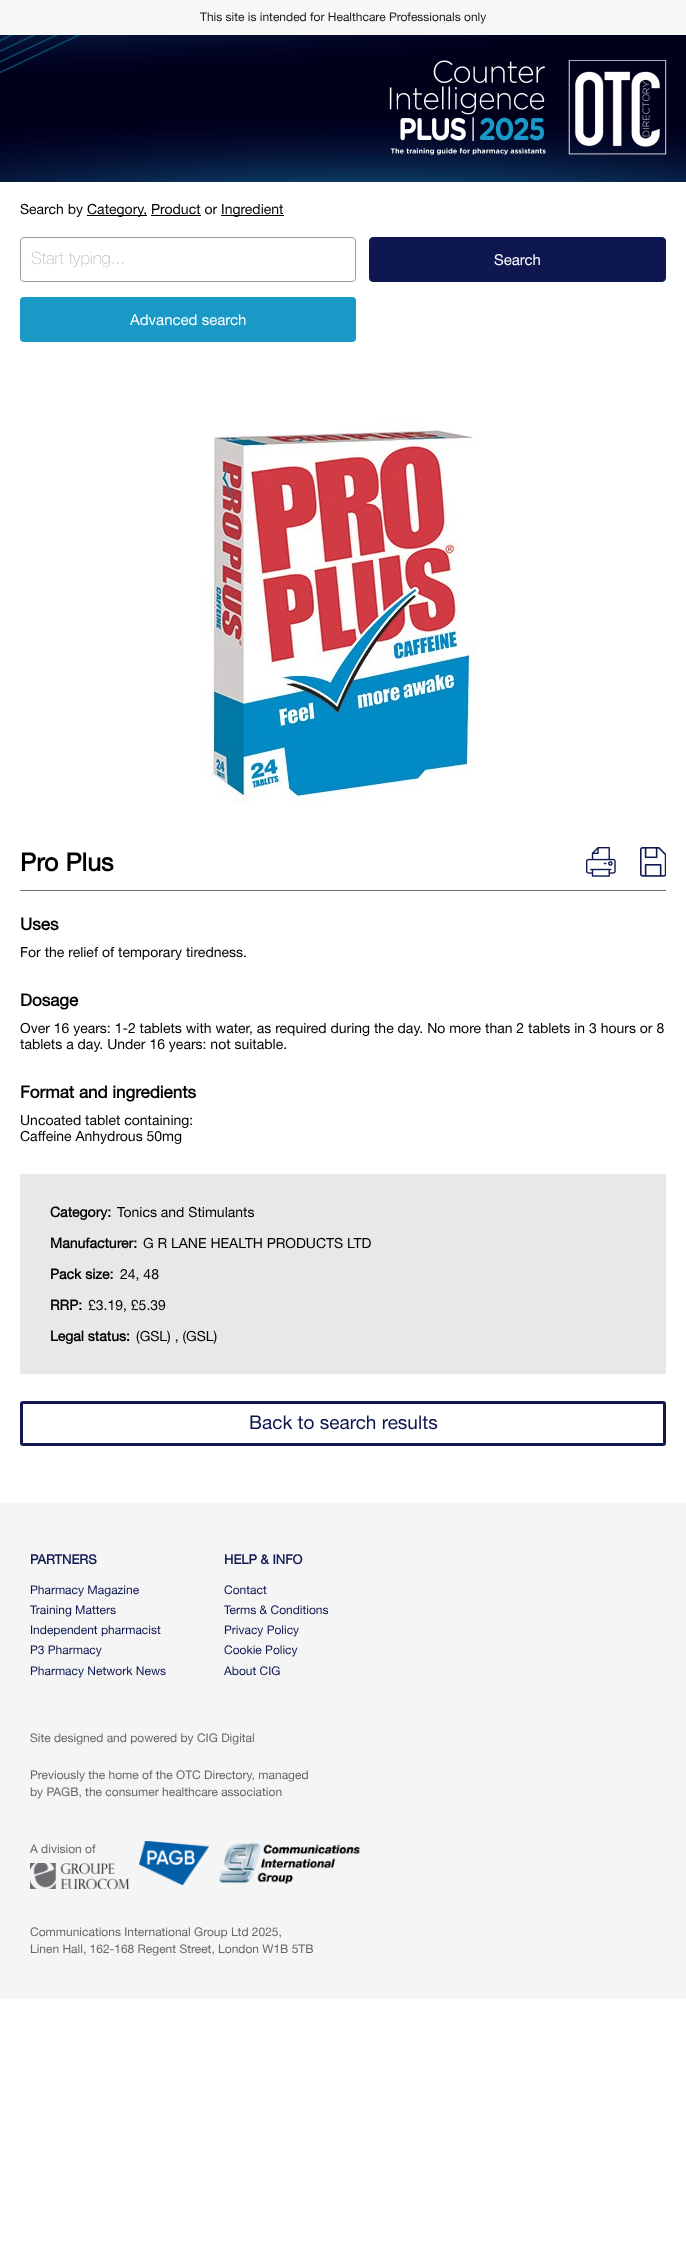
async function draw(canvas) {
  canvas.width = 686
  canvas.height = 2257
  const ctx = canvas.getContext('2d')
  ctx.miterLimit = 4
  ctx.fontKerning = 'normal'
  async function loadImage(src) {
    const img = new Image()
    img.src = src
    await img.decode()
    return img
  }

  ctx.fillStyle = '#fff'
  ctx.fillRect(0, 0, 686, 2257)
  ctx.fillStyle = '#f7f7f7'
  ctx.fillRect(0, 0, 686, 35)
  ctx.font = '12px Helvetica Neue'
  ctx.fillStyle = '#202020'
  ctx.fillText('This site is intended for Healthcare Professionals only', 200, 21)
  ctx.drawImage(await loadImage('image0.png'), 0, 35, 686, 147)
  ctx.drawImage(await loadImage('image1.png'), 389, 60, 278, 95)
  ctx.font = '14px Helvetica Neue'
  ctx.fillStyle = '#000'
  ctx.fillText('Search by', 20, 214)
  ctx.fillRect(87, 215, 60, 1)
  ctx.fillText('Category, Product or', 87, 214)
  ctx.fillRect(151, 215, 50, 1)
  ctx.fillRect(221, 215, 63, 1)
  ctx.fillText('Ingredient', 221, 214)
  ctx.beginPath()
  ctx.roundRect(20.5, 237.5, 335, 44, 3.5)
  ctx.strokeStyle = '#9a9a9a'
  ctx.stroke()
  ctx.font = '200 17px Helvetica Neue'
  ctx.fillStyle = '#bdbdbd'
  ctx.fillText('Start typing...', 31, 264)
  ctx.fillStyle = '#0e1750'
  ctx.beginPath()
  ctx.roundRect(369.5, 237.5, 296, 44, 3.5)
  ctx.fill()
  ctx.strokeStyle = '#0e1750'
  ctx.stroke()
  ctx.font = '15px Helvetica Neue'
  ctx.fillStyle = '#fff'
  ctx.fillText('Search', 494, 265)
  ctx.fillStyle = '#1999c6'
  ctx.beginPath()
  ctx.roundRect(20, 297, 336, 45, 4)
  ctx.fill()
  ctx.fillStyle = '#fff'
  ctx.fillText('Advanced search', 130, 325)
  ctx.drawImage(await loadImage('image2.png'), 203, 418, 272, 384)
  ctx.fillStyle = '#707070'
  ctx.fillRect(20, 890, 646, 1)
  ctx.font = 'bold 25px Helvetica Neue'
  ctx.fillStyle = '#000'
  ctx.fillText('Pro Plus', 20, 871)
  ctx.drawImage(await loadImage('image3.png'), 586, 847, 30, 30)
  ctx.drawImage(await loadImage('image4.png'), 640, 847, 26, 30)
  ctx.font = 'bold 17px Helvetica Neue'
  ctx.fillText('Uses', 20, 930)
  ctx.font = '14px Helvetica Neue'
  ctx.fillText('For the relief of temporary tiredness.', 20, 957)
  ctx.font = 'bold 17px Helvetica Neue'
  ctx.fillText('Dosage', 20, 1006)
  ctx.font = '14px Helvetica Neue'
  ctx.fillText('Over 16 years: 1-2 tablets with water, as required during the day. No more than 2 tablets in 3 hours or 8', 20, 1033)
  ctx.fillText('tablets a day. Under 16 years: not suitable.', 20, 1049)
  ctx.font = 'bold 17px Helvetica Neue'
  ctx.fillText('Format and ingredients', 20, 1098)
  ctx.font = '14px Helvetica Neue'
  ctx.fillText('Uncoated tablet containing:', 20, 1125)
  ctx.fillText('Caffeine Anhydrous 50mg', 20, 1141)
  ctx.fillStyle = '#e8e8e8'
  ctx.fillRect(20, 1174, 646, 200)
  ctx.font = 'bold 14px Helvetica Neue'
  ctx.fillStyle = '#000'
  ctx.fillText('Category:', 50, 1217)
  ctx.font = '14px Helvetica Neue'
  ctx.fillText('Tonics and Stimulants', 117, 1217)
  ctx.font = 'bold 14px Helvetica Neue'
  ctx.fillText('Manufacturer:', 50, 1248)
  ctx.font = '14px Helvetica Neue'
  ctx.fillText('G R LANE HEALTH PRODUCTS LTD', 143, 1248)
  ctx.font = 'bold 14px Helvetica Neue'
  ctx.fillText('Pack size:', 50, 1279)
  ctx.font = '14px Helvetica Neue'
  ctx.fillText('24, 48', 120, 1279)
  ctx.font = 'bold 14px Helvetica Neue'
  ctx.fillText('RRP:', 50, 1310)
  ctx.font = '14px Helvetica Neue'
  ctx.fillText('£3.19, £5.39', 88, 1310)
  ctx.font = 'bold 14px Helvetica Neue'
  ctx.fillText('Legal status:', 50, 1341)
  ctx.font = '14px Helvetica Neue'
  ctx.fillText('(GSL) , (GSL)', 136, 1341)
  ctx.beginPath()
  ctx.roundRect(21.5, 1402.5, 643, 42, 1.5)
  ctx.lineWidth = 3
  ctx.stroke()
  ctx.font = '19px Helvetica Neue'
  ctx.fillStyle = '#0e1750'
  ctx.fillText('Back to search results', 249, 1429)
  ctx.fillStyle = '#f5f5f5'
  ctx.fillRect(0, 1503, 686, 496)
  ctx.font = 'bold 13px Helvetica Neue'
  ctx.fillStyle = '#0e1750'
  ctx.fillText('PARTNERS', 30, 1564)
  ctx.font = '12px Helvetica Neue'
  ctx.fillText('Pharmacy Magazine', 30, 1594)
  ctx.fillText('Training Matters', 30, 1614)
  ctx.fillText('Independent pharmacist', 30, 1634)
  ctx.fillText('P3 Pharmacy', 30, 1654)
  ctx.fillText('Pharmacy Network News', 30, 1675)
  ctx.font = 'bold 13px Helvetica Neue'
  ctx.fillText('HELP & INFO', 224, 1564)
  ctx.font = '12px Helvetica Neue'
  ctx.fillText('Contact', 224, 1594)
  ctx.fillText('Terms & Conditions', 224, 1614)
  ctx.fillText('Privacy Policy', 224, 1634)
  ctx.fillText('Cookie Policy', 224, 1654)
  ctx.fillText('About CIG', 224, 1675)
  ctx.fillStyle = '#676767'
  ctx.fillText('Site designed and powered by CIG Digital', 30, 1742)
  ctx.fillText('Previously the home of the OTC Directory, managed', 30, 1779)
  ctx.fillText('by PAGB, the consumer healthcare association', 30, 1796)
  ctx.fillText('A division of', 30, 1853)
  ctx.drawImage(await loadImage('image5.png'), 30, 1863, 99, 26)
  ctx.drawImage(await loadImage('image6.png'), 139, 1841, 70, 44)
  ctx.drawImage(await loadImage('image7.png'), 219, 1843, 142, 42)
  ctx.fillText('Communications International Group Ltd 2025,', 30, 1936)
  ctx.fillText('Linen Hall, 162-168 Regent Street, London W1B 5TB', 30, 1953)
}

draw(document.querySelector('canvas'))
